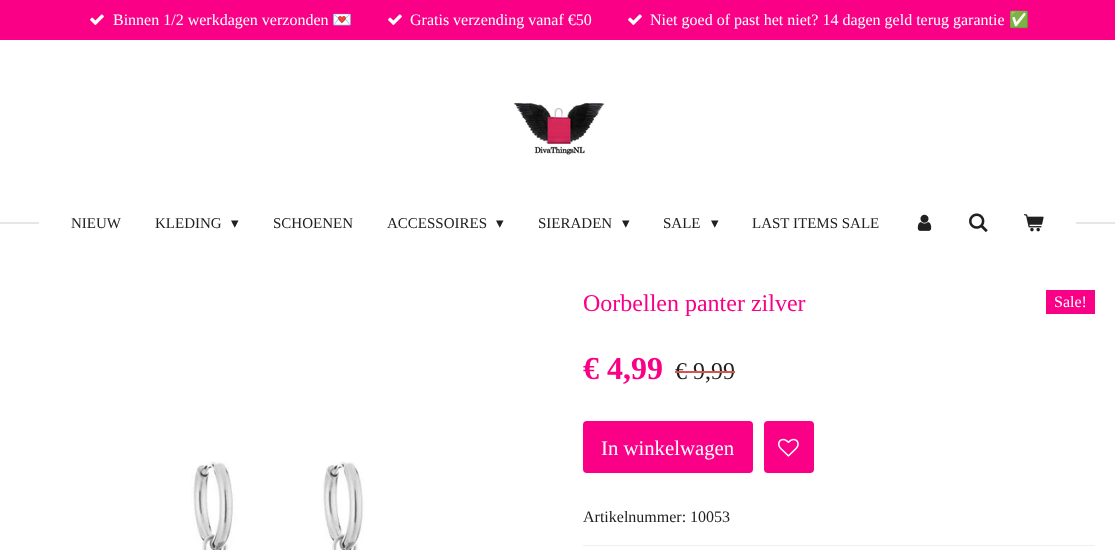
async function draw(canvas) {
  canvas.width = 1115
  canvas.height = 550
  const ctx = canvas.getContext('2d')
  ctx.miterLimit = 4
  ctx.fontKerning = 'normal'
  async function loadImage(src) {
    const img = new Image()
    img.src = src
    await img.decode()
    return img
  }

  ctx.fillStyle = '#fff'
  ctx.fillRect(0, 0, 1115, 550)
  ctx.fillStyle = '#fa0087'
  ctx.fillRect(0, 0, 1115, 40)
  ctx.drawImage(await loadImage('image0.png'), 90, 14, 14, 11)
  ctx.font = '16px Liberation Serif'
  ctx.fillStyle = '#fff'
  ctx.fillText('Binnen 1/2 werkdagen verzonden', 113, 25)
  ctx.font = '16px Noto Color Emoji'
  ctx.fillText('💌', 332, 25)
  ctx.drawImage(await loadImage('image0.png'), 388, 14, 14, 11)
  ctx.font = '16px Liberation Serif'
  ctx.fillText('Gratis verzending vanaf €50', 410, 25)
  ctx.drawImage(await loadImage('image0.png'), 628, 14, 14, 11)
  ctx.fillText('Niet goed of past het niet? 14 dagen geld terug garantie', 650, 25)
  ctx.font = '16px Noto Color Emoji'
  ctx.fillText('✅', 1009, 25)
  ctx.drawImage(await loadImage('image1.png'), 513, 102, 92, 53)
  ctx.fillStyle = '#e6e6e6'
  ctx.fillRect(0, 222, 39, 2)
  ctx.font = '15px Liberation Serif'
  ctx.fillStyle = '#202020'
  ctx.fillText('NIEUW', 71, 228)
  ctx.fillText('KLEDING', 155, 228)
  ctx.font = '15px DejaVu Sans'
  ctx.fillText('▾', 231, 228)
  ctx.font = '15px Liberation Serif'
  ctx.fillText('SCHOENEN', 273, 228)
  ctx.fillText('ACCESSOIRES', 387, 228)
  ctx.font = '15px DejaVu Sans'
  ctx.fillText('▾', 496, 228)
  ctx.font = '15px Liberation Serif'
  ctx.fillText('SIERADEN', 538, 228)
  ctx.font = '15px DejaVu Sans'
  ctx.fillText('▾', 622, 228)
  ctx.font = '15px Liberation Serif'
  ctx.fillText('SALE', 663, 228)
  ctx.font = '15px DejaVu Sans'
  ctx.fillText('▾', 711, 228)
  ctx.font = '15px Liberation Serif'
  ctx.fillText('LAST ITEMS SALE', 752, 228)
  ctx.drawImage(await loadImage('image2.png'), 917, 214, 15, 17)
  ctx.drawImage(await loadImage('image3.png'), 969, 213, 19, 20)
  ctx.drawImage(await loadImage('image4.png'), 1024, 214, 20, 18)
  ctx.fillStyle = '#e6e6e6'
  ctx.fillRect(1076, 222, 39, 2)
  ctx.font = '24px Liberation Serif'
  ctx.fillStyle = '#fa0087'
  ctx.fillText('Oorbellen panter zilver', 583, 311)
  ctx.fillRect(1046, 290, 49, 24)
  ctx.font = '16px Liberation Serif'
  ctx.fillStyle = '#fff'
  ctx.fillText('Sale!', 1054, 307)
  ctx.drawImage(await loadImage('image5.png'), 191, 461, 174, 89)
  ctx.font = 'bold 32px Liberation Serif'
  ctx.fillStyle = '#fa0087'
  ctx.fillText('€ 4,99', 583, 379)
  ctx.font = '24px Liberation Serif'
  ctx.fillStyle = '#202020'
  ctx.fillText('€ 9,99', 675, 379)
  ctx.fillStyle = '#d9534f'
  ctx.fillRect(675, 371, 60, 2)
  ctx.fillStyle = '#fa0087'
  ctx.beginPath()
  ctx.roundRect(583, 421, 170, 52, 4)
  ctx.fill()
  ctx.font = '20.75px Liberation Serif'
  ctx.fillStyle = '#fff'
  ctx.fillText('In winkelwagen', 601, 455)
  ctx.fillStyle = '#fa0087'
  ctx.beginPath()
  ctx.roundRect(764, 421, 50, 52, 4)
  ctx.fill()
  ctx.drawImage(await loadImage('image6.png'), 778, 438, 21, 19)
  ctx.font = '16px Liberation Serif'
  ctx.fillStyle = '#202020'
  ctx.fillText('Artikelnummer: 10053', 583, 522)
  ctx.fillStyle = '#efefef'
  ctx.fillRect(583, 545, 512, 1)
}

draw(document.querySelector('canvas'))
